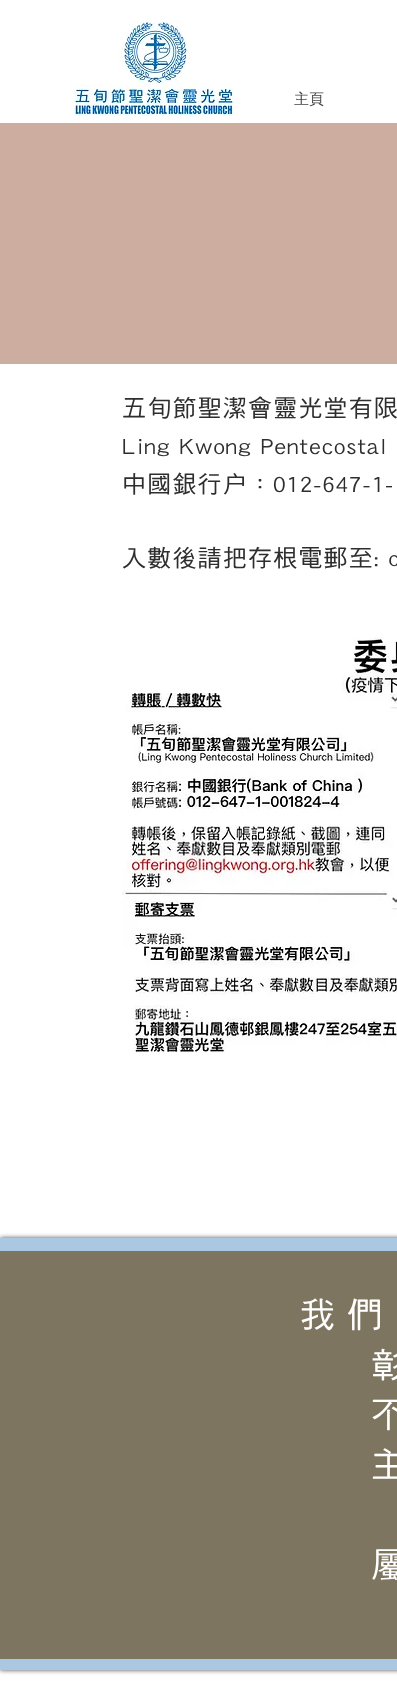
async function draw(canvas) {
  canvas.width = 397
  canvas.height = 1704
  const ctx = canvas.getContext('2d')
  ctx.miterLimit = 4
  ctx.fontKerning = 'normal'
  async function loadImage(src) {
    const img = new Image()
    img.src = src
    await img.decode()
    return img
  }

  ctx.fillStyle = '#fff'
  ctx.fillRect(0, 0, 397, 1704)
  ctx.drawImage(await loadImage('image0.png'), 70, 21, 168, 95)
  ctx.font = '500 15px WenQuanYi Zen Hei'
  ctx.fillStyle = '#444'
  ctx.fillText('主頁', 294, 104)
  ctx.fillStyle = '#ccad9f'
  ctx.fillRect(0, 123, 397, 241)
  ctx.letterSpacing = '1.2px'
  ctx.font = '24px "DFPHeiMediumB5"'
  ctx.fillStyle = '#2f2e2e'
  ctx.fillText('五旬節聖潔會靈光堂有限', 122, 415)
  ctx.fillText('Ling Kwong Pentecostal', 122, 453)
  ctx.fillText('中國銀行户：012-647-1-', 122, 491)
  ctx.fillText('入數後請把存根電郵至: o', 122, 565)
  ctx.drawImage(await loadImage('image1.png'), 122, 637, 275, 416)
  ctx.fillStyle = '#000000b3'
  ctx.filter = 'blur(2.5px)'
  ctx.beginPath()
  ctx.rect(0, 1238, 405, 432)
  ctx.fill()
  ctx.filter = 'none'
  ctx.fillStyle = '#abc8e2'
  ctx.fillRect(0, 1238, 397, 432)
  ctx.fillStyle = '#7d7560'
  ctx.fillRect(0, 1251, 397, 408)
  ctx.letterSpacing = '12px'
  ctx.font = '35px "DFPHeiMediumB5"'
  ctx.fillStyle = '#fff'
  ctx.fillText('我們', 300, 1325)
  ctx.fillText('彰', 371, 1375)
  ctx.fillText('不', 371, 1425)
  ctx.fillText('主', 371, 1475)
  ctx.fillText('屬', 371, 1575)
}

draw(document.querySelector('canvas'))
